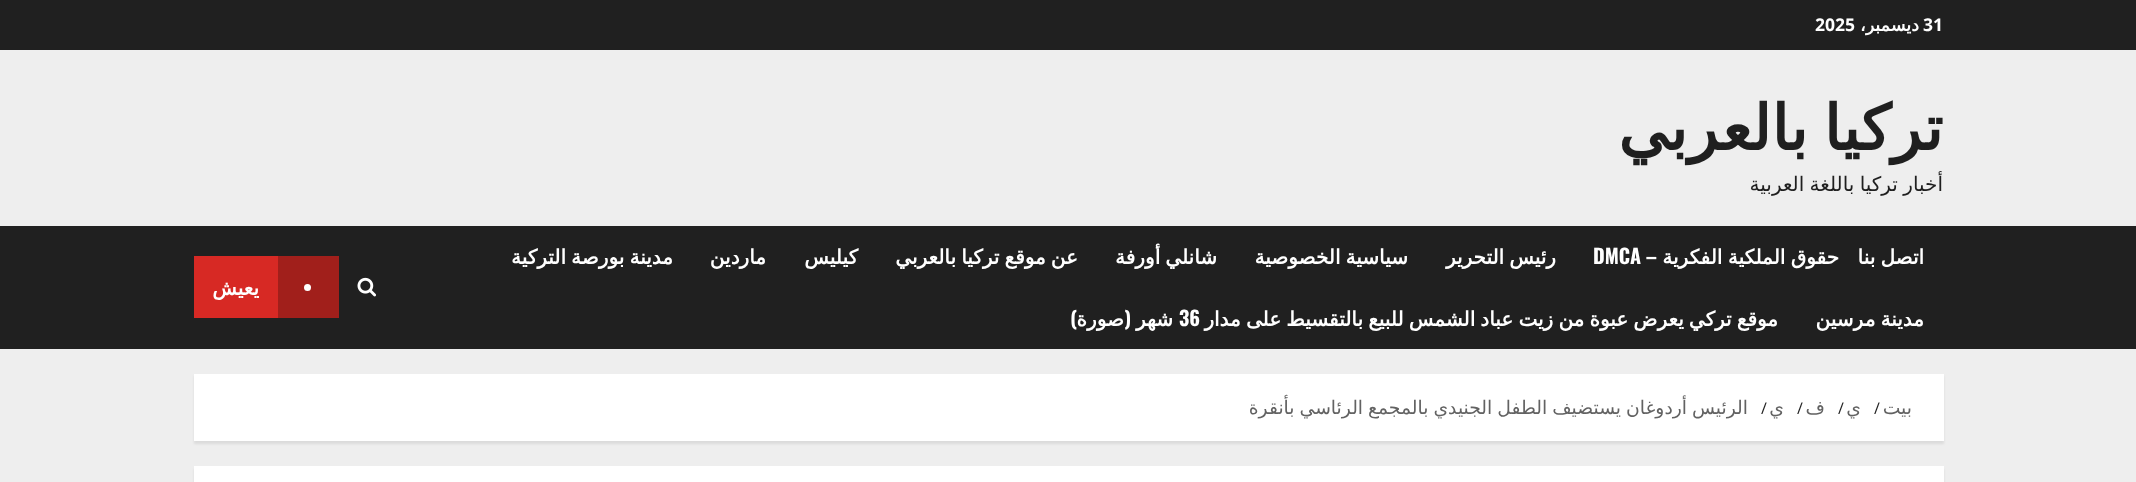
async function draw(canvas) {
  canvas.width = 2136
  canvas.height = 482
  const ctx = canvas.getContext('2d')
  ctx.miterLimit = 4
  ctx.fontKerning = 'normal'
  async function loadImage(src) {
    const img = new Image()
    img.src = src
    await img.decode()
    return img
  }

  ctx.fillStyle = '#eee'
  ctx.fillRect(0, 0, 2136, 482)
  ctx.fillStyle = '#202020'
  ctx.fillRect(0, 0, 2136, 50)
  ctx.font = 'bold 17.5px Open Sans'
  ctx.fillStyle = '#fff'
  ctx.fillText('31', 1923, 31)
  ctx.direction = 'rtl'
  ctx.font = 'bold 17.5px DejaVu Sans'
  ctx.fillText('ديسمبر،', 1919, 31)
  ctx.direction = 'ltr'
  ctx.font = 'bold 17.5px Open Sans'
  ctx.fillText('2025', 1815, 31)
  ctx.wordSpacing = '-4px'
  ctx.direction = 'rtl'
  ctx.font = 'bold 62.5px DejaVu Sans'
  ctx.fillStyle = '#1f1f1f'
  ctx.fillText('تركيا بالعربي', 1943, 150)
  ctx.wordSpacing = '-1px'
  ctx.font = '20px DejaVu Sans'
  ctx.fillText('أخبار تركيا باللغة العربية', 1943, 191)
  ctx.fillStyle = '#202020'
  ctx.fillRect(0, 226, 2136, 123)
  ctx.wordSpacing = '-1.25px'
  ctx.font = 'bold 20px DejaVu Sans'
  ctx.fillStyle = '#fff'
  ctx.fillText('اتصل بنا', 1924, 264)
  ctx.wordSpacing = '-1px'
  ctx.fillText('حقوق الملكية الفكرية', 1839, 264)
  ctx.wordSpacing = '0px'
  ctx.font = 'bold 20px Oswald'
  ctx.fillText('–', 1657, 264)
  ctx.direction = 'ltr'
  ctx.fillText('DMCA', 1593, 264)
  ctx.wordSpacing = '-1.25px'
  ctx.direction = 'rtl'
  ctx.font = 'bold 20px DejaVu Sans'
  ctx.fillText('رئيس التحرير', 1556, 264)
  ctx.fillText('سياسية الخصوصية', 1408, 264)
  ctx.fillText('شانلي أورفة', 1217, 264)
  ctx.fillText('عن موقع تركيا بالعربي', 1078, 264)
  ctx.wordSpacing = '0px'
  ctx.fillText('كيليس', 858, 264)
  ctx.fillText('ماردين', 766, 264)
  ctx.wordSpacing = '-1.25px'
  ctx.fillText('مدينة بورصة التركية', 673, 264)
  ctx.fillText('مدينة مرسين', 1924, 326)
  ctx.fillText('موقع تركي يعرض عبوة من زيت عباد الشمس للبيع بالتقسيط على مدار', 1778, 326)
  ctx.wordSpacing = '0px'
  ctx.direction = 'ltr'
  ctx.font = 'bold 20px Oswald'
  ctx.fillText('36', 1179, 326)
  ctx.direction = 'rtl'
  ctx.font = 'bold 20px DejaVu Sans'
  ctx.fillText('شهر', 1173, 326)
  ctx.font = 'bold 20px Oswald'
  ctx.fillText('(', 1131, 326)
  ctx.font = 'bold 20px DejaVu Sans'
  ctx.fillText('صورة', 1124, 326)
  ctx.font = 'bold 20px Oswald'
  ctx.fillText(')', 1077, 326)
  ctx.drawImage(await loadImage('image0.png'), 357, 277, 19, 20)
  ctx.fillStyle = '#d72924'
  ctx.fillRect(194, 256, 84, 62)
  ctx.fillStyle = '#a11f1b'
  ctx.fillRect(278, 256, 61, 62)
  ctx.fillStyle = '#fff'
  ctx.beginPath()
  ctx.arc(307.5, 287.5, 3.5, 0, 2 * Math.PI)
  ctx.fill()
  ctx.font = 'bold 20px DejaVu Sans'
  ctx.fillText('يعيش', 259, 295)
  ctx.fillStyle = '#00000014'
  ctx.filter = 'blur(1px)'
  ctx.beginPath()
  ctx.rect(194, 376, 1750, 68)
  ctx.fill()
  ctx.filter = 'none'
  ctx.fillStyle = '#fff'
  ctx.fillRect(194, 374, 1750, 67)
  ctx.font = '18.75px DejaVu Sans'
  ctx.fillStyle = '#626262'
  ctx.fillText('بيت', 1912, 414)
  ctx.direction = 'ltr'
  ctx.font = '16px Open Sans'
  ctx.fillStyle = '#1f1f1f'
  ctx.fillText('/', 1874, 414)
  ctx.direction = 'rtl'
  ctx.font = '18.75px DejaVu Sans'
  ctx.fillStyle = '#626262'
  ctx.fillText('ي', 1861, 414)
  ctx.direction = 'ltr'
  ctx.font = '16px Open Sans'
  ctx.fillStyle = '#1f1f1f'
  ctx.fillText('/', 1838, 414)
  ctx.direction = 'rtl'
  ctx.font = '18.75px DejaVu Sans'
  ctx.fillStyle = '#626262'
  ctx.fillText('ف', 1825, 414)
  ctx.direction = 'ltr'
  ctx.font = '16px Open Sans'
  ctx.fillStyle = '#1f1f1f'
  ctx.fillText('/', 1797, 414)
  ctx.direction = 'rtl'
  ctx.font = '18.75px DejaVu Sans'
  ctx.fillStyle = '#626262'
  ctx.fillText('ي', 1784, 414)
  ctx.direction = 'ltr'
  ctx.font = '16px Open Sans'
  ctx.fillStyle = '#1f1f1f'
  ctx.fillText('/', 1761, 414)
  ctx.wordSpacing = '-1px'
  ctx.direction = 'rtl'
  ctx.font = '18.75px DejaVu Sans'
  ctx.fillStyle = '#626262'
  ctx.fillText('الرئيس أردوغان يستضيف الطفل الجنيدي بالمجمع الرئاسي بأنقرة', 1748, 414)
  ctx.fillStyle = '#00000014'
  ctx.filter = 'blur(1px)'
  ctx.beginPath()
  ctx.rect(194, 469, 1750, 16)
  ctx.fill()
  ctx.filter = 'none'
  ctx.fillStyle = '#fff'
  ctx.fillRect(194, 466, 1750, 16)
}

draw(document.querySelector('canvas'))
